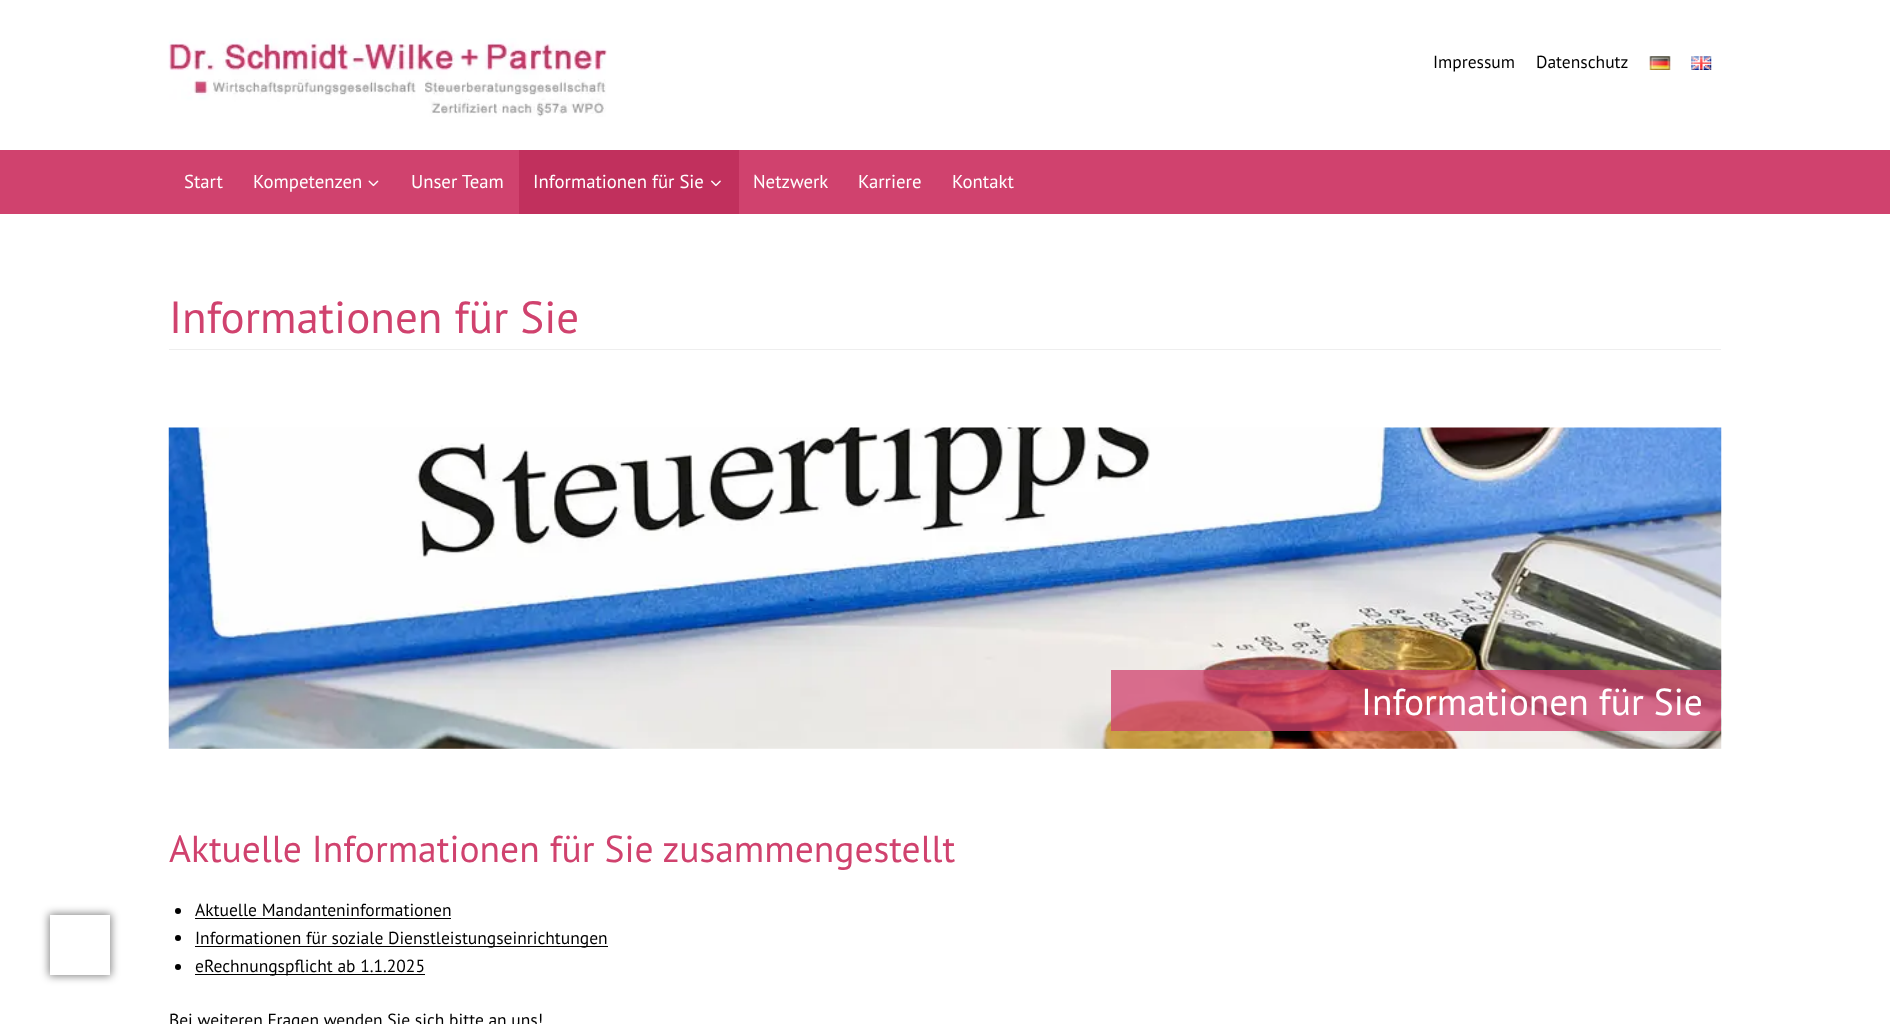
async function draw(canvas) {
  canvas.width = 1890
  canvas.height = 1024
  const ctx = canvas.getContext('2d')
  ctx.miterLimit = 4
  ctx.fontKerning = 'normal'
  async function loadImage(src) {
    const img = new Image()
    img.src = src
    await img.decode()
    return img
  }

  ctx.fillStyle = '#fff'
  ctx.fillRect(0, 0, 1890, 1024)
  ctx.save()
  ctx.beginPath()
  ctx.moveTo(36, 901)
  ctx.lineTo(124, 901)
  ctx.lineTo(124, 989)
  ctx.lineTo(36, 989)
  ctx.closePath()
  ctx.moveTo(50, 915)
  ctx.lineTo(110, 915)
  ctx.lineTo(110, 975)
  ctx.lineTo(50, 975)
  ctx.closePath()
  ctx.clip('evenodd')
  ctx.fillStyle = '#00000080'
  ctx.filter = 'blur(4px)'
  ctx.beginPath()
  ctx.rect(49, 914, 62, 62)
  ctx.fill()
  ctx.filter = 'none'
  ctx.restore()
  ctx.drawImage(await loadImage('image0.png'), 168, 38, 439, 79)
  ctx.font = '17.5px PT Sans'
  ctx.fillStyle = '#000'
  ctx.fillText('Impressum', 1433, 68)
  ctx.fillText('Datenschutz', 1536, 68)
  ctx.drawImage(await loadImage('image1.png'), 1649, 56, 22, 14)
  ctx.drawImage(await loadImage('image2.png'), 1691, 56, 21, 14)
  ctx.fillStyle = '#d0426e'
  ctx.fillRect(0, 150, 1890, 64)
  ctx.font = '18.75px PT Sans'
  ctx.fillStyle = '#fff'
  ctx.fillText('Start', 184, 188)
  ctx.fillText('Kompetenzen', 253, 188)
  ctx.drawImage(await loadImage('image3.png'), 368, 180, 11, 7)
  ctx.fillText('Unser Team', 411, 188)
  ctx.fillStyle = '#c1305d'
  ctx.fillRect(519, 150, 220, 64)
  ctx.fillStyle = '#fff'
  ctx.fillText('Informationen für Sie', 533, 188)
  ctx.drawImage(await loadImage('image4.png'), 711, 180, 10, 7)
  ctx.fillText('Netzwerk', 753, 188)
  ctx.fillText('Karriere', 858, 188)
  ctx.fillText('Kontakt', 952, 188)
  ctx.font = '45px PT Sans'
  ctx.fillStyle = '#d0426e'
  ctx.fillText('Informationen für Sie', 169, 333)
  ctx.fillStyle = '#eee'
  ctx.fillRect(169, 349, 1552, 1)
  ctx.drawImage(await loadImage('image5.png'), 168, 427, 1554, 322)
  ctx.fillStyle = '#d0426ebf'
  ctx.fillRect(1111, 670, 610, 61)
  ctx.font = '37.5px PT Sans'
  ctx.fillStyle = '#fff'
  ctx.fillText('Informationen für Sie', 1361, 715)
  ctx.fillStyle = '#d0426e'
  ctx.fillText('Aktuelle Informationen für Sie zusammengestellt', 169, 862)
  ctx.fillStyle = '#000'
  ctx.beginPath()
  ctx.arc(178, 911, 3, 0, 2 * Math.PI)
  ctx.fill()
  ctx.font = '17.5px PT Sans'
  ctx.fillText('Aktuelle Mandanteninformationen', 195, 916)
  ctx.fillRect(195, 918, 256, 1)
  ctx.beginPath()
  ctx.arc(178, 938, 3, 0, 2 * Math.PI)
  ctx.fill()
  ctx.fillRect(195, 946, 413, 1)
  ctx.fillText('Informationen für soziale Dienstleistungseinrichtungen', 195, 944)
  ctx.beginPath()
  ctx.arc(178, 967, 3, 0, 2 * Math.PI)
  ctx.fill()
  ctx.fillRect(195, 974, 230, 1)
  ctx.fillText('eRechnungspflicht ab 1.1.2025', 195, 972)
  ctx.fillText('Bei weiteren Fragen wenden Sie sich bitte an uns!', 169, 1026)
}

draw(document.querySelector('canvas'))
